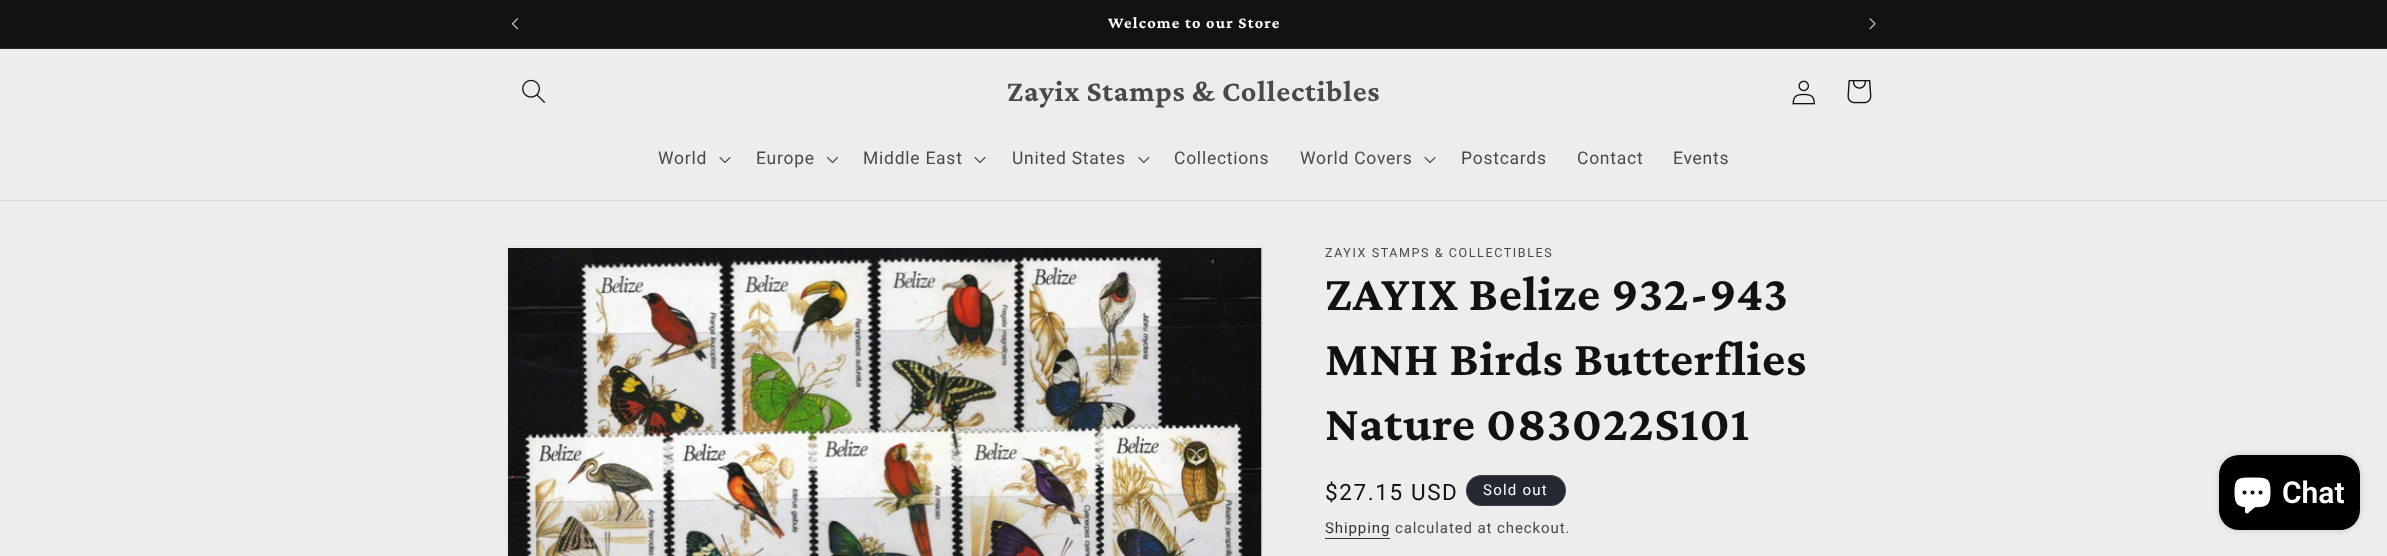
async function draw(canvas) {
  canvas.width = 2387
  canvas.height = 556
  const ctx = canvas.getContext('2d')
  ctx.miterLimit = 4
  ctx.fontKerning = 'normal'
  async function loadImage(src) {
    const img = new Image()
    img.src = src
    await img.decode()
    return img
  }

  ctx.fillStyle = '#ededed'
  ctx.fillRect(0, 0, 2387, 556)
  ctx.fillStyle = '#121212'
  ctx.fillRect(0, 0, 2387, 48)
  ctx.fillStyle = '#252525'
  ctx.fillRect(0, 48, 2387, 1)
  ctx.drawImage(await loadImage('image0.png'), 512, 18, 6, 12)
  ctx.letterSpacing = '1.25px'
  ctx.font = 'bold 16.25px Crimson Pro'
  ctx.fillStyle = '#fff'
  ctx.fillText('Welcome to our Store', 1108, 28)
  ctx.drawImage(await loadImage('image1.png'), 1869, 18, 7, 12)
  ctx.fillStyle = '#dbdbdb'
  ctx.fillRect(0, 200, 2387, 1)
  ctx.drawImage(await loadImage('image2.png'), 522, 79, 23, 24)
  ctx.letterSpacing = '0.75px'
  ctx.font = 'bold 30px Crimson Pro'
  ctx.fillStyle = '#494949'
  ctx.fillText('Zayix Stamps & Collectibles', 1007, 101)
  ctx.drawImage(await loadImage('image3.png'), 1792, 80, 23, 25)
  ctx.drawImage(await loadImage('image4.png'), 1847, 80, 25, 24)
  ctx.font = '17.5px Roboto'
  ctx.fillText('World', 658, 164)
  ctx.drawImage(await loadImage('image5.png'), 719, 157, 12, 6)
  ctx.fillText('Europe', 756, 164)
  ctx.drawImage(await loadImage('image6.png'), 826, 156, 13, 8)
  ctx.fillText('Middle East', 863, 164)
  ctx.drawImage(await loadImage('image5.png'), 974, 157, 12, 6)
  ctx.fillText('United States', 1012, 164)
  ctx.drawImage(await loadImage('image7.png'), 1138, 156, 12, 8)
  ctx.fillText('Collections', 1174, 164)
  ctx.fillText('World Covers', 1300, 164)
  ctx.drawImage(await loadImage('image5.png'), 1424, 157, 12, 6)
  ctx.fillText('Postcards', 1461, 164)
  ctx.fillText('Contact', 1577, 164)
  ctx.fillText('Events', 1673, 164)
  ctx.strokeStyle = '#e2e2e2'
  ctx.strokeRect(506.5, 246.5, 756, 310)
  ctx.drawImage(await loadImage('image8.png'), 508, 248, 754, 308)
  ctx.letterSpacing = '1.6px'
  ctx.font = '12.5px Roboto'
  ctx.fillText('ZAYIX STAMPS & COLLECTIBLES', 1325, 257)
  ctx.letterSpacing = '0.75px'
  ctx.font = 'bold 50px Crimson Pro'
  ctx.fillStyle = '#121212'
  ctx.fillText('ZAYIX Belize 932-943', 1325, 310)
  ctx.fillText('MNH Birds Butterflies', 1325, 375)
  ctx.fillText('Nature 083022S101', 1325, 440)
  ctx.letterSpacing = '1.6px'
  ctx.font = '22.5px Roboto'
  ctx.fillText('$27.15 USD', 1325, 500)
  ctx.fillStyle = '#242833'
  ctx.beginPath()
  ctx.roundRect(1466, 475, 100, 31, 15.5)
  ctx.fill()
  ctx.beginPath()
  ctx.roundRect(1466.5, 475.5, 99, 30, 15)
  ctx.strokeStyle = '#ffffff1a'
  ctx.stroke()
  ctx.letterSpacing = '1.25px'
  ctx.font = '15px Roboto'
  ctx.fillStyle = '#fff'
  ctx.fillText('Sold out', 1483, 495)
  ctx.letterSpacing = '0.9px'
  ctx.fillStyle = '#333'
  ctx.fillText('Shipping', 1325, 533)
  ctx.fillRect(1325, 538, 65, 1)
  ctx.fillStyle = '#494949'
  ctx.fillText('calculated at checkout.', 1395, 533)
  ctx.fillStyle = '#00000026'
  ctx.filter = 'blur(3px)'
  ctx.beginPath()
  ctx.roundRect(2219, 455, 141, 75, 20)
  ctx.fill()
  ctx.filter = 'none'
  ctx.fillStyle = '#000'
  ctx.beginPath()
  ctx.roundRect(2219, 455, 141, 75, 20)
  ctx.fill()
  ctx.drawImage(await loadImage('image9.png'), 2234, 477, 37, 37)
  ctx.letterSpacing = '0px'
  ctx.font = '600 30px Roboto'
  ctx.fillStyle = '#fff'
  ctx.fillText('Chat', 2282, 503)
}

draw(document.querySelector('canvas'))
